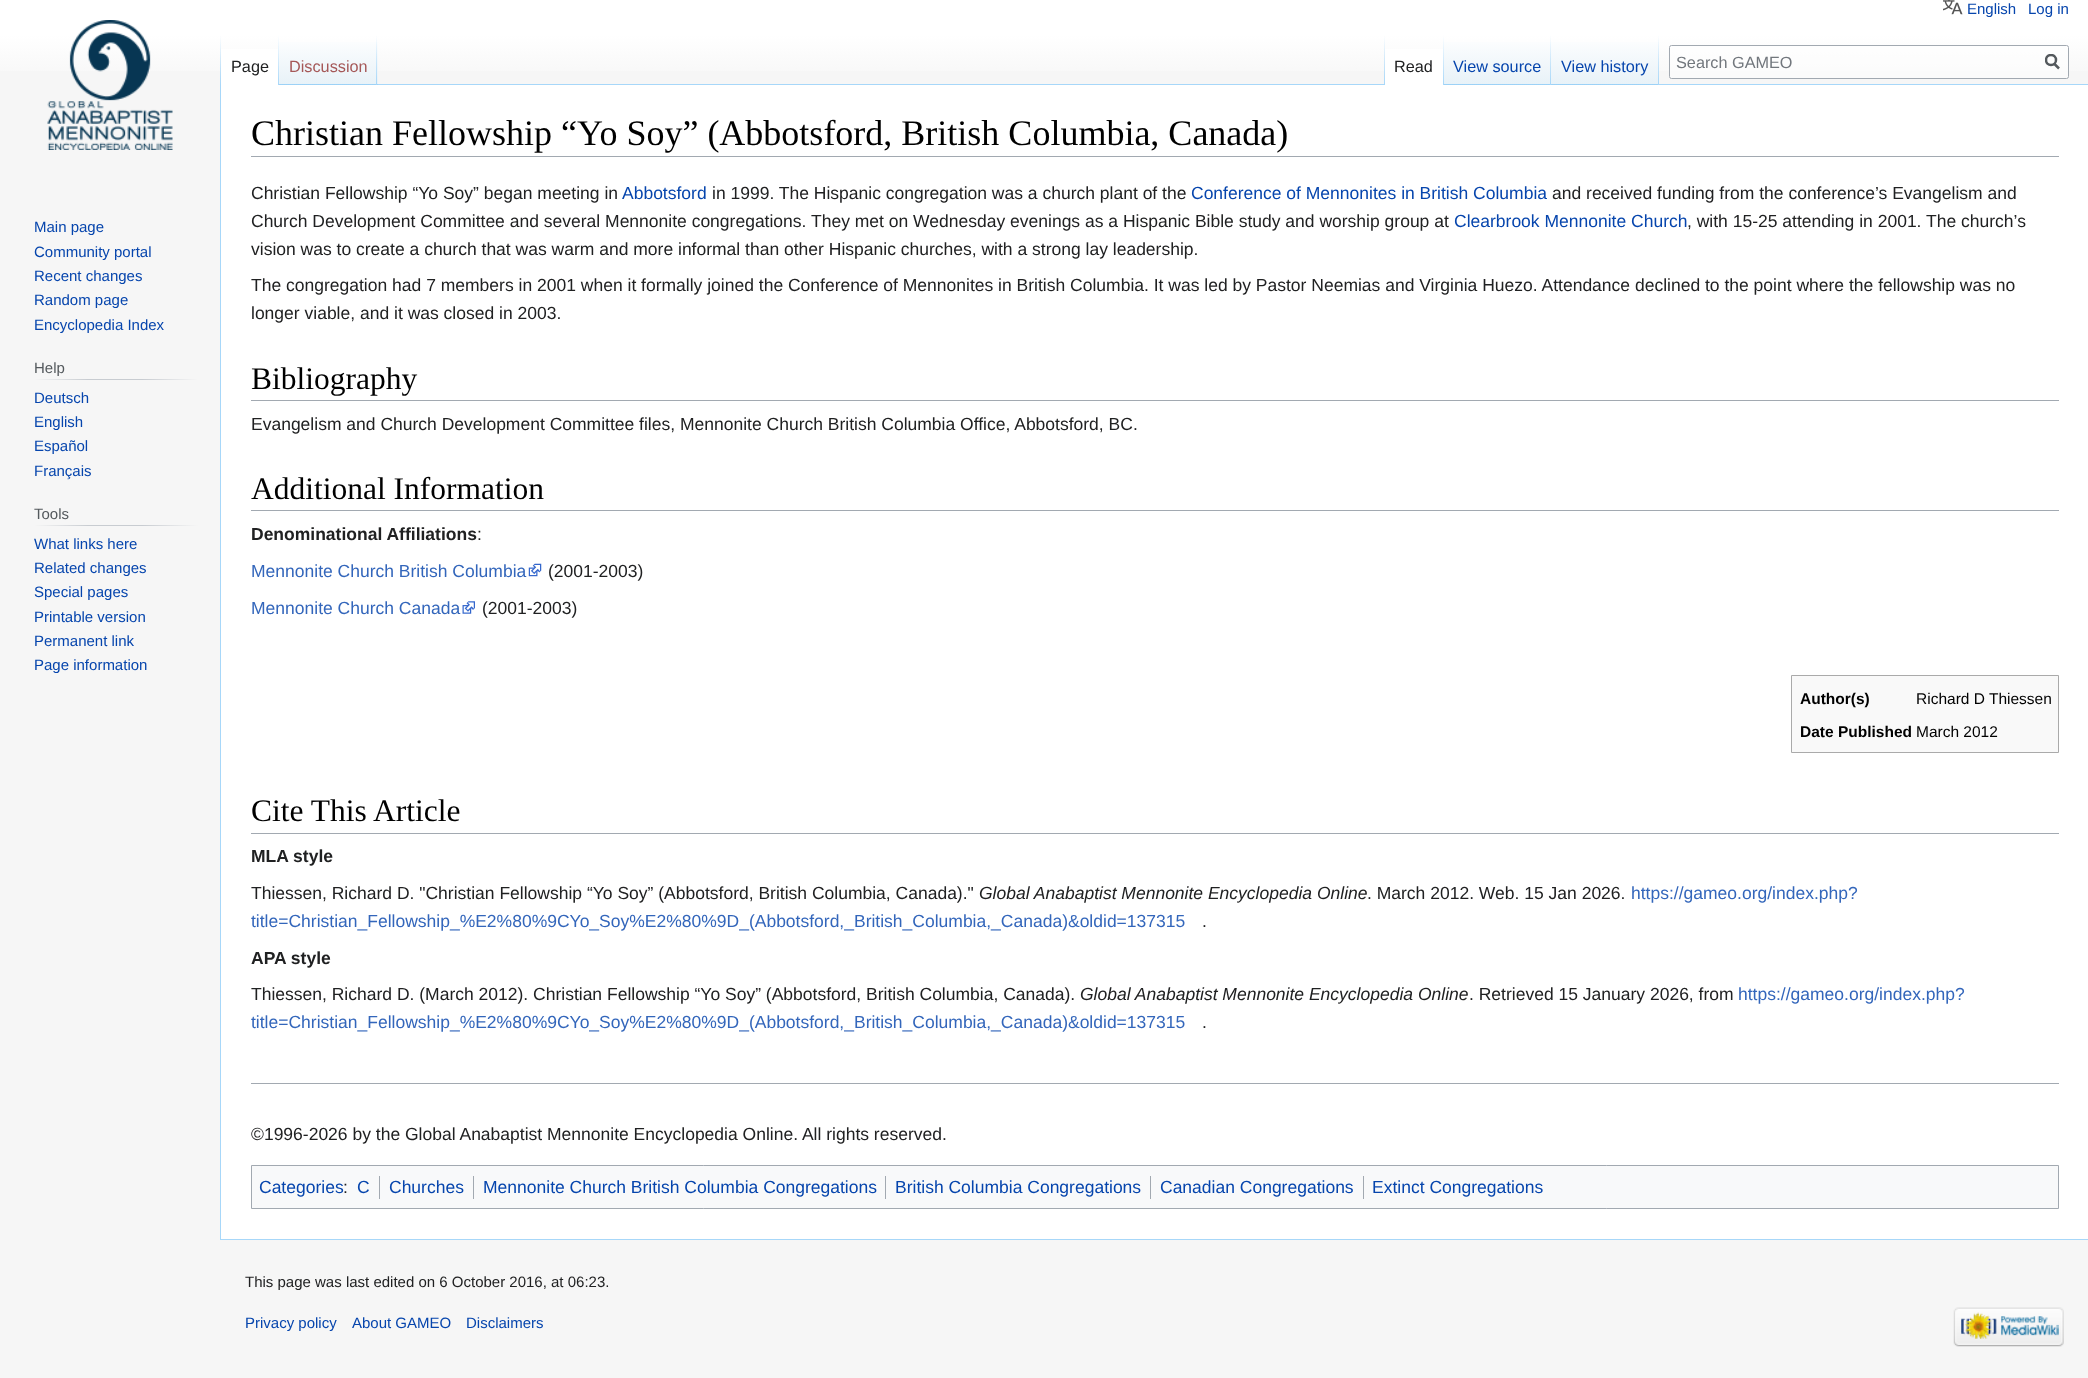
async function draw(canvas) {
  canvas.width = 2088
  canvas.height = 1378
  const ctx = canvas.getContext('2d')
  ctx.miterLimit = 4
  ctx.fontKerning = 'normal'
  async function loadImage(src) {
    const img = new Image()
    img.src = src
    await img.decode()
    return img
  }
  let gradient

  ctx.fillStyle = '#f6f6f6'
  ctx.fillRect(0, 0, 2088, 1378)
  gradient = ctx.createLinearGradient(1044, -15, 1044, 85)
  gradient.addColorStop(0.5, '#fff')
  gradient.addColorStop(1, '#f6f6f6')
  ctx.fillStyle = gradient
  ctx.fillRect(0, 0, 2088, 71)
  ctx.drawImage(await loadImage('image0.png'), 1943, 0, 20, 15)
  ctx.font = '15px Liberation Sans'
  ctx.fillStyle = '#0645ad'
  ctx.fillText('English', 1967, 14)
  ctx.fillText('Log in', 2028, 14)
  ctx.fillStyle = '#a7d7f9'
  ctx.fillRect(220, 1239, 1868, 1)
  ctx.fillRect(220, 84, 1, 1156)
  gradient = ctx.createLinearGradient(221, 35, 221, 85)
  gradient.addColorStop(0, '#a7d7f900')
  gradient.addColorStop(1, '#a7d7f9')
  ctx.fillStyle = gradient
  ctx.fillRect(220, 35, 1, 50)
  ctx.fillStyle = '#fff'
  ctx.fillRect(221, 49, 57, 36)
  gradient = ctx.createLinearGradient(278, 35, 278, 85)
  gradient.addColorStop(0, '#fff')
  gradient.addColorStop(1, '#a7d7f9')
  ctx.fillStyle = gradient
  ctx.fillRect(278, 35, 1, 50)
  ctx.font = '16.25px Liberation Sans'
  ctx.fillStyle = '#202122'
  ctx.fillText('Page', 231, 72)
  gradient = ctx.createLinearGradient(328, 85, 328, 35)
  gradient.addColorStop(0, '#77c1f6')
  gradient.addColorStop(0.03, '#e8f2f8')
  gradient.addColorStop(1, '#fff')
  ctx.fillStyle = gradient
  ctx.fillRect(279, 42, 99, 43)
  gradient = ctx.createLinearGradient(377, 35, 377, 85)
  gradient.addColorStop(0, '#a7d7f900')
  gradient.addColorStop(1, '#a7d7f9')
  ctx.fillStyle = gradient
  ctx.fillRect(376, 35, 1, 50)
  ctx.fillStyle = '#a55858'
  ctx.fillText('Discussion', 289, 72)
  ctx.fillStyle = '#a7d7f9'
  ctx.fillRect(378, 84, 1710, 1)
  gradient = ctx.createLinearGradient(1384, 35, 1384, 85)
  gradient.addColorStop(0, '#a7d7f900')
  gradient.addColorStop(1, '#a7d7f9')
  ctx.fillStyle = gradient
  ctx.fillRect(1384, 35, 1, 50)
  ctx.fillStyle = '#fff'
  ctx.fillRect(1385, 49, 58, 36)
  gradient = ctx.createLinearGradient(1443, 35, 1443, 85)
  gradient.addColorStop(0, '#fff')
  gradient.addColorStop(1, '#a7d7f9')
  ctx.fillStyle = gradient
  ctx.fillRect(1443, 35, 1, 50)
  ctx.fillStyle = '#202122'
  ctx.fillText('Read', 1394, 72)
  gradient = ctx.createLinearGradient(1498, 85, 1498, 35)
  gradient.addColorStop(0, '#77c1f6')
  gradient.addColorStop(0.03, '#e8f2f8')
  gradient.addColorStop(1, '#fff')
  ctx.fillStyle = gradient
  ctx.fillRect(1444, 42, 107, 43)
  gradient = ctx.createLinearGradient(1551, 35, 1551, 85)
  gradient.addColorStop(0, '#a7d7f900')
  gradient.addColorStop(1, '#a7d7f9')
  ctx.fillStyle = gradient
  ctx.fillRect(1550, 35, 1, 50)
  ctx.fillStyle = '#0645ad'
  ctx.fillText('View source', 1453, 72)
  gradient = ctx.createLinearGradient(1605, 85, 1605, 35)
  gradient.addColorStop(0, '#77c1f6')
  gradient.addColorStop(0.03, '#e8f2f8')
  gradient.addColorStop(1, '#fff')
  ctx.fillStyle = gradient
  ctx.fillRect(1551, 42, 108, 43)
  gradient = ctx.createLinearGradient(1658, 35, 1658, 85)
  gradient.addColorStop(0, '#a7d7f900')
  gradient.addColorStop(1, '#a7d7f9')
  ctx.fillStyle = gradient
  ctx.fillRect(1658, 35, 1, 50)
  ctx.fillStyle = '#0645ad'
  ctx.fillText('View history', 1561, 72)
  ctx.fillStyle = '#ffffff80'
  ctx.beginPath()
  ctx.roundRect(1669.5, 45.5, 399, 33, 2)
  ctx.fill()
  ctx.strokeStyle = '#a2a9b1'
  ctx.stroke()
  ctx.fillStyle = '#72777d'
  ctx.fillText('Search GAMEO', 1676, 68)
  ctx.beginPath()
  ctx.moveTo(2059, 68.5)
  ctx.lineTo(2054, 63.5)
  ctx.strokeStyle = '#54595d'
  ctx.lineWidth = 2.5
  ctx.stroke()
  ctx.save()
  ctx.beginPath()
  ctx.rect(2045, 54, 15, 16)
  ctx.clip()
  ctx.beginPath()
  ctx.arc(2051, 60, 5, 0, 2 * Math.PI)
  ctx.stroke()
  ctx.restore()
  ctx.drawImage(await loadImage('image1.png'), 47, 20, 126, 130)
  ctx.font = '15px Liberation Sans'
  ctx.fillStyle = '#0645ad'
  ctx.fillText('Main page', 34, 232)
  ctx.fillText('Community portal', 34, 257)
  ctx.fillText('Recent changes', 34, 281)
  ctx.fillText('Random page', 34, 305)
  ctx.fillText('Encyclopedia Index', 34, 330)
  gradient = ctx.createLinearGradient(34, 379, 198, 379)
  gradient.addColorStop(0, '#f6f6f6')
  gradient.addColorStop(0.33, '#c8ccd1')
  gradient.addColorStop(0.66, '#c8ccd1')
  gradient.addColorStop(1, '#f6f6f6')
  ctx.fillStyle = gradient
  ctx.fillRect(34, 379, 164, 1)
  ctx.fillStyle = '#54595d'
  ctx.fillText('Help', 34, 373)
  ctx.fillStyle = '#0645ad'
  ctx.fillText('Deutsch', 34, 403)
  ctx.fillText('English', 34, 427)
  ctx.fillText('Español', 34, 451)
  ctx.fillText('Français', 34, 476)
  gradient = ctx.createLinearGradient(34, 526, 198, 526)
  gradient.addColorStop(0, '#f6f6f6')
  gradient.addColorStop(0.33, '#c8ccd1')
  gradient.addColorStop(0.66, '#c8ccd1')
  gradient.addColorStop(1, '#f6f6f6')
  ctx.fillStyle = gradient
  ctx.fillRect(34, 525, 164, 1)
  ctx.fillStyle = '#54595d'
  ctx.fillText('Tools', 34, 519)
  ctx.fillStyle = '#0645ad'
  ctx.fillText('What links here', 34, 549)
  ctx.fillText('Related changes', 34, 573)
  ctx.fillText('Special pages', 34, 597)
  ctx.fillText('Printable version', 34, 622)
  ctx.fillText('Permanent link', 34, 646)
  ctx.fillText('Page information', 34, 670)
  ctx.fillStyle = '#fff'
  ctx.fillRect(221, 85, 1867, 1154)
  ctx.fillStyle = '#a2a9b1'
  ctx.fillRect(251, 156, 1808, 1)
  ctx.font = '36px Liberation Serif'
  ctx.fillStyle = '#000'
  ctx.fillText('Christian Fellowship “Yo Soy” (Abbotsford, British Columbia, Canada)', 251, 145)
  ctx.font = '17.5px Liberation Sans'
  ctx.fillStyle = '#202122'
  ctx.fillText('Christian Fellowship “Yo Soy” began meeting in', 251, 199)
  ctx.fillStyle = '#0645ad'
  ctx.fillText('Abbotsford', 622, 199)
  ctx.fillStyle = '#202122'
  ctx.fillText('in 1999. The Hispanic congregation was a church plant of the', 712, 199)
  ctx.fillStyle = '#0645ad'
  ctx.fillText('Conference of Mennonites in British Columbia', 1191, 199)
  ctx.fillStyle = '#202122'
  ctx.fillText('and received funding from the conference’s Evangelism and', 1552, 199)
  ctx.fillText('Church Development Committee and several Mennonite congregations. They met on Wednesday evenings as a Hispanic Bible study and worship group at', 251, 227)
  ctx.fillStyle = '#0645ad'
  ctx.fillText('Clearbrook Mennonite Church', 1454, 227)
  ctx.fillStyle = '#202122'
  ctx.fillText(', with 15-25 attending in 2001. The church’s', 1687, 227)
  ctx.fillText('vision was to create a church that was warm and more informal than other Hispanic churches, with a strong lay leadership.', 251, 255)
  ctx.fillText('The congregation had 7 members in 2001 when it formally joined the Conference of Mennonites in British Columbia. It was led by Pastor Neemias and Virginia Huezo. Attendance declined to the point where the fellowship was no', 251, 291)
  ctx.fillText('longer viable, and it was closed in 2003.', 251, 319)
  ctx.fillStyle = '#a2a9b1'
  ctx.fillRect(251, 400, 1808, 1)
  ctx.font = '31.5px Liberation Serif'
  ctx.fillStyle = '#000'
  ctx.fillText('Bibliography', 251, 389)
  ctx.font = '17.5px Liberation Sans'
  ctx.fillStyle = '#202122'
  ctx.fillText('Evangelism and Church Development Committee files, Mennonite Church British Columbia Office, Abbotsford, BC.', 251, 430)
  ctx.fillStyle = '#a2a9b1'
  ctx.fillRect(251, 510, 1808, 1)
  ctx.font = '31.5px Liberation Serif'
  ctx.fillStyle = '#000'
  ctx.fillText('Additional Information', 251, 499)
  ctx.font = 'bold 17.5px Liberation Sans'
  ctx.fillStyle = '#202122'
  ctx.fillText('Denominational Affiliations', 251, 540)
  ctx.font = '17.5px Liberation Sans'
  ctx.fillText(':', 477, 540)
  ctx.fillStyle = '#36b'
  ctx.fillText('Mennonite Church British Columbia', 251, 577)
  ctx.drawImage(await loadImage('image2.png'), 528, 563, 14, 14)
  ctx.fillStyle = '#202122'
  ctx.fillText('(2001-2003)', 548, 577)
  ctx.fillStyle = '#36b'
  ctx.fillText('Mennonite Church Canada', 251, 614)
  ctx.drawImage(await loadImage('image3.png'), 462, 601, 13, 13)
  ctx.fillStyle = '#202122'
  ctx.fillText('(2001-2003)', 482, 614)
  ctx.fillStyle = '#f9f9f9'
  ctx.beginPath()
  ctx.rect(1791.5, 675.5, 267, 77)
  ctx.fill()
  ctx.strokeStyle = '#aaa'
  ctx.lineWidth = 1
  ctx.stroke()
  ctx.font = 'bold 15.5px Liberation Sans'
  ctx.fillStyle = '#000'
  ctx.fillText('Author(s)', 1800, 704)
  ctx.font = '15.5px Liberation Sans'
  ctx.fillText('Richard D Thiessen', 1916, 704)
  ctx.font = 'bold 15.5px Liberation Sans'
  ctx.fillText('Date Published', 1800, 737)
  ctx.font = '15.5px Liberation Sans'
  ctx.fillText('March 2012', 1916, 737)
  ctx.fillStyle = '#a2a9b1'
  ctx.fillRect(251, 833, 1808, 1)
  ctx.font = '31.5px Liberation Serif'
  ctx.fillStyle = '#000'
  ctx.fillText('Cite This Article', 251, 821)
  ctx.font = 'bold 17.5px Liberation Sans'
  ctx.fillStyle = '#202122'
  ctx.fillText('MLA style', 251, 862)
  ctx.font = '17.5px Liberation Sans'
  ctx.fillText('Thiessen, Richard D. "Christian Fellowship “Yo Soy” (Abbotsford, British Columbia, Canada)."', 251, 899)
  ctx.font = 'italic 17.5px Liberation Sans'
  ctx.fillText('Global Anabaptist Mennonite Encyclopedia Online', 979, 899)
  ctx.font = '17.5px Liberation Sans'
  ctx.fillText('. March 2012. Web. 15 Jan 2026.', 1367, 899)
  ctx.fillStyle = '#36b'
  ctx.fillText('https://gameo.org/index.php?', 1631, 899)
  ctx.fillText('title=Christian_Fellowship_%E2%80%9CYo_Soy%E2%80%9D_(Abbotsford,_British_Columbia,_Canada)&oldid=137315', 251, 927)
  ctx.fillStyle = '#202122'
  ctx.fillText('.', 1202, 927)
  ctx.font = 'bold 17.5px Liberation Sans'
  ctx.fillText('APA style', 251, 964)
  ctx.font = '17.5px Liberation Sans'
  ctx.fillText('Thiessen, Richard D. (March 2012). Christian Fellowship “Yo Soy” (Abbotsford, British Columbia, Canada).', 251, 1000)
  ctx.font = 'italic 17.5px Liberation Sans'
  ctx.fillText('Global Anabaptist Mennonite Encyclopedia Online', 1080, 1000)
  ctx.font = '17.5px Liberation Sans'
  ctx.fillText('. Retrieved 15 January 2026, from', 1469, 1000)
  ctx.fillStyle = '#36b'
  ctx.fillText('https://gameo.org/index.php?', 1738, 1000)
  ctx.fillText('title=Christian_Fellowship_%E2%80%9CYo_Soy%E2%80%9D_(Abbotsford,_British_Columbia,_Canada)&oldid=137315', 251, 1028)
  ctx.fillStyle = '#202122'
  ctx.fillText('.', 1202, 1028)
  ctx.fillStyle = '#a2a9b1'
  ctx.fillRect(251, 1083, 1808, 1)
  ctx.fillStyle = '#202122'
  ctx.fillText('©1996-2026 by the Global Anabaptist Mennonite Encyclopedia Online. All rights reserved.', 251, 1140)
  ctx.fillStyle = '#f8f9fa'
  ctx.beginPath()
  ctx.rect(251.5, 1165.5, 1807, 43)
  ctx.fill()
  ctx.strokeStyle = '#a2a9b1'
  ctx.stroke()
  ctx.fillStyle = '#0645ad'
  ctx.fillText('Categories', 259, 1193)
  ctx.fillStyle = '#202122'
  ctx.fillText(':', 343, 1193)
  ctx.fillStyle = '#0645ad'
  ctx.fillText('C', 357, 1193)
  ctx.fillStyle = '#a2a9b1'
  ctx.fillRect(379, 1176, 1, 23)
  ctx.fillStyle = '#0645ad'
  ctx.fillText('Churches', 389, 1193)
  ctx.fillStyle = '#a2a9b1'
  ctx.fillRect(473, 1176, 1, 23)
  ctx.fillStyle = '#0645ad'
  ctx.fillText('Mennonite Church British Columbia Congregations', 483, 1193)
  ctx.fillStyle = '#a2a9b1'
  ctx.fillRect(885, 1176, 1, 23)
  ctx.fillStyle = '#0645ad'
  ctx.fillText('British Columbia Congregations', 895, 1193)
  ctx.fillStyle = '#a2a9b1'
  ctx.fillRect(1150, 1176, 1, 23)
  ctx.fillStyle = '#0645ad'
  ctx.fillText('Canadian Congregations', 1160, 1193)
  ctx.fillStyle = '#a2a9b1'
  ctx.fillRect(1363, 1176, 1, 23)
  ctx.fillStyle = '#0645ad'
  ctx.fillText('Extinct Congregations', 1372, 1193)
  ctx.font = '15px Liberation Sans'
  ctx.fillStyle = '#202122'
  ctx.fillText('This page was last edited on 6 October 2016, at 06:23.', 245, 1287)
  ctx.fillStyle = '#0645ad'
  ctx.fillText('Privacy policy', 245, 1328)
  ctx.fillText('About GAMEO', 352, 1328)
  ctx.fillText('Disclaimers', 466, 1328)
  ctx.drawImage(await loadImage('image4.png'), 1953, 1307, 111, 40)
}

draw(document.querySelector('canvas'))
